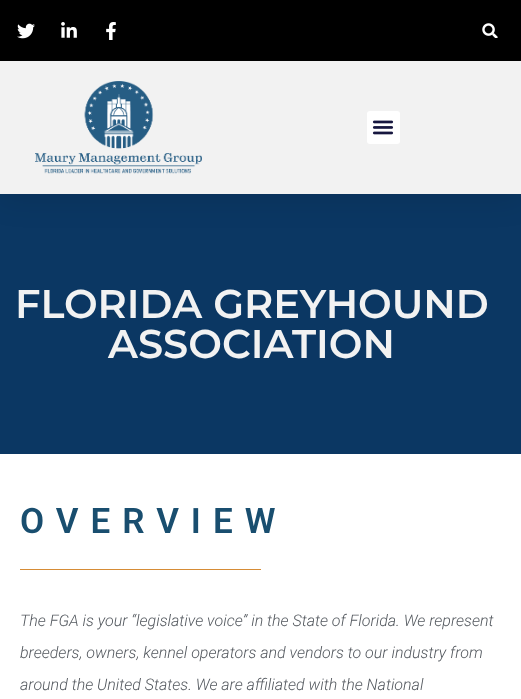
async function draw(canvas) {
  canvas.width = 521
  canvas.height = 699
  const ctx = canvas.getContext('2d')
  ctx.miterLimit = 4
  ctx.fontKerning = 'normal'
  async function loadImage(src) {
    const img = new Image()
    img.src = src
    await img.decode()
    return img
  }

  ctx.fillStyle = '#fff'
  ctx.fillRect(0, 0, 521, 699)
  ctx.fillStyle = '#0b3763'
  ctx.fillRect(0, 194, 521, 260)
  ctx.fillStyle = '#0000001a'
  ctx.filter = 'blur(15px)'
  ctx.beginPath()
  ctx.rect(0, 5, 521, 194)
  ctx.fill()
  ctx.filter = 'none'
  ctx.fillStyle = '#000'
  ctx.fillRect(0, 0, 521, 61)
  ctx.drawImage(await loadImage('image0.png'), 17, 23, 18, 16)
  ctx.drawImage(await loadImage('image1.png'), 61, 22, 16, 16)
  ctx.drawImage(await loadImage('image2.png'), 106, 22, 10, 18)
  ctx.drawImage(await loadImage('image3.png'), 482, 23, 16, 15)
  ctx.fillStyle = '#f2f2f2'
  ctx.fillRect(0, 61, 521, 133)
  ctx.drawImage(await loadImage('image4.png'), 35, 81, 167, 93)
  ctx.fillStyle = '#fff'
  ctx.beginPath()
  ctx.roundRect(367, 111, 33, 33, 3)
  ctx.fill()
  ctx.drawImage(await loadImage('image5.png'), 372, 120, 22, 15)
  ctx.font = '600 40px Montserrat'
  ctx.fillStyle = '#f2f2f2'
  ctx.fillText('FLORIDA GREYHOUND', 15, 318)
  ctx.fillText('ASSOCIATION', 108, 358)
  ctx.letterSpacing = '12px'
  ctx.font = '600 35px Roboto'
  ctx.fillStyle = '#194e6f'
  ctx.fillText('OVERVIEW', 20, 533)
  ctx.fillStyle = '#d68c36'
  ctx.fillRect(20, 569, 241, 1)
  ctx.letterSpacing = '0px'
  ctx.font = 'italic 300 16px Roboto'
  ctx.fillStyle = '#54595f'
  ctx.fillText('The FGA is your “legislative voice” in the State of Florida. We represent', 20, 626)
  ctx.fillText('breeders, owners, kennel operators and vendors to our industry from', 20, 658)
  ctx.fillText('around the United States. We are affiliated with the National', 20, 690)
}

draw(document.querySelector('canvas'))
